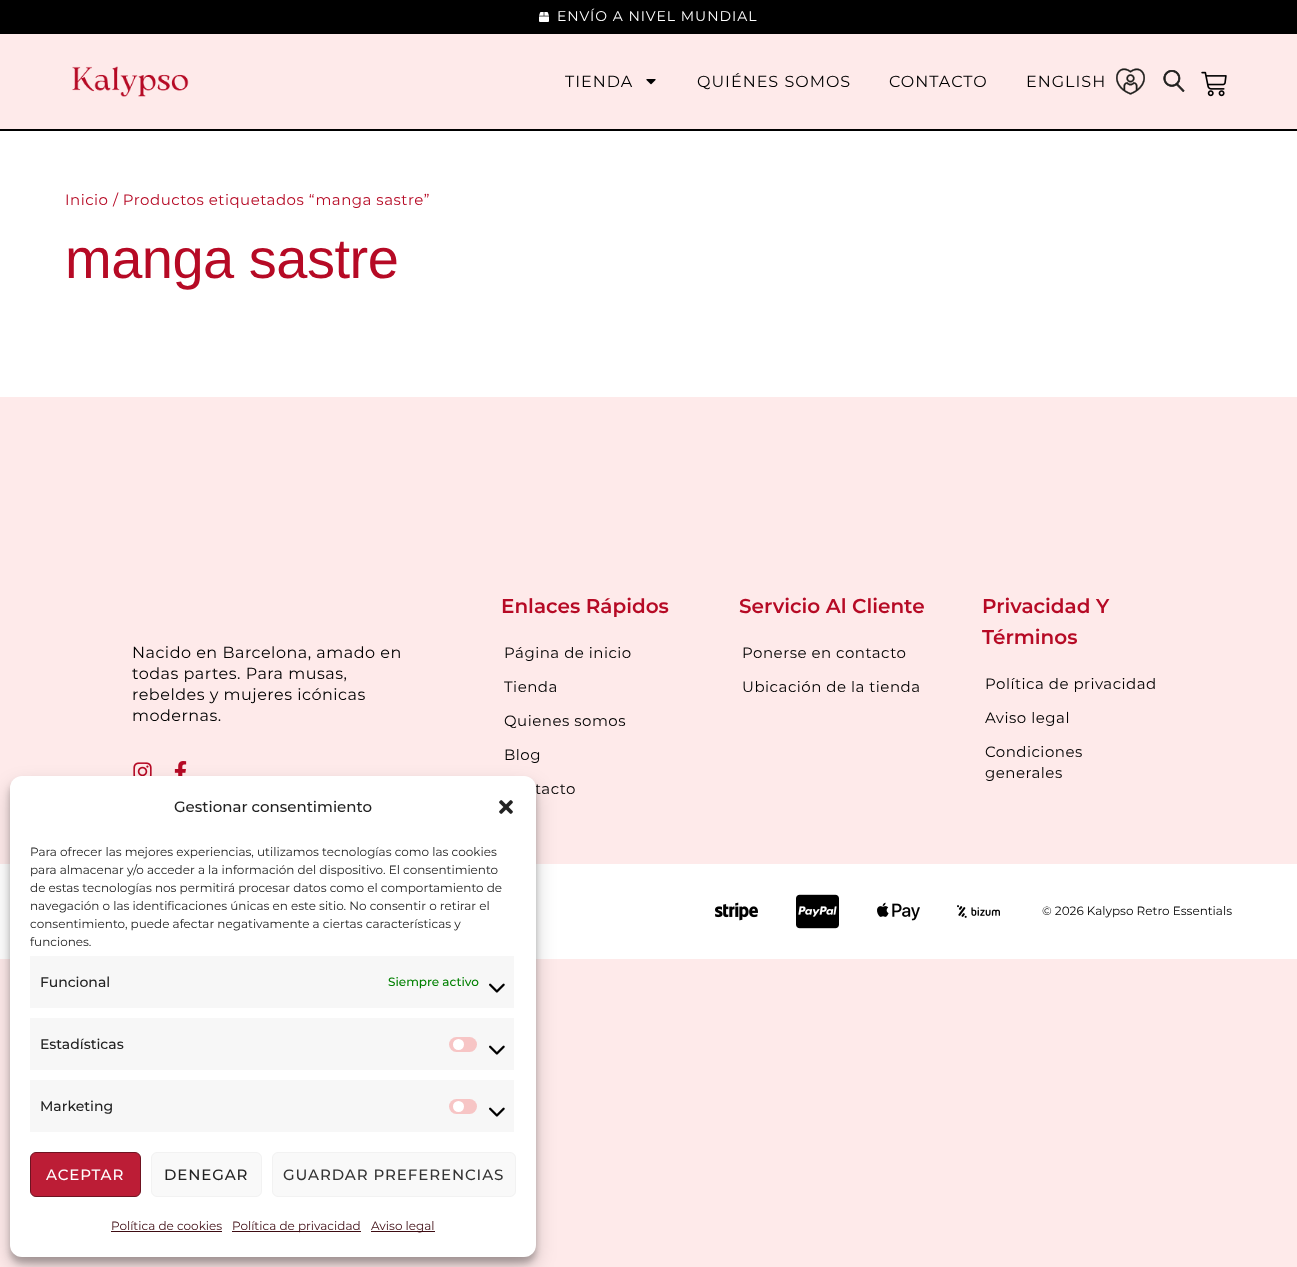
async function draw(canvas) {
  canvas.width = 1297
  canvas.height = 1267
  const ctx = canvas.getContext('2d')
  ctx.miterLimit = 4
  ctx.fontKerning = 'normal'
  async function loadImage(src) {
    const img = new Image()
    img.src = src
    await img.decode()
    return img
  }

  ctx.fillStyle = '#feeaea'
  ctx.fillRect(0, 0, 1297, 1267)
  ctx.fillStyle = '#000'
  ctx.fillRect(0, 0, 1297, 34)
  ctx.drawImage(await loadImage('image0.png'), 539, 12, 10, 10)
  ctx.letterSpacing = '1px'
  ctx.font = '14px Montserrat'
  ctx.fillStyle = '#fff'
  ctx.fillText('ENVÍO A NIVEL MUNDIAL', 557, 21)
  ctx.fillStyle = '#000'
  ctx.fillRect(0, 129, 1297, 2)
  ctx.drawImage(await loadImage('image1.png'), 72, 66, 117, 31)
  ctx.font = '16px Montserrat'
  ctx.fillText('TIENDA', 565, 87)
  ctx.drawImage(await loadImage('image2.png'), 646, 79, 10, 6)
  ctx.fillText('QUIÉNES SOMOS', 697, 87)
  ctx.fillText('CONTACTO', 889, 87)
  ctx.fillText('ENGLISH', 1026, 87)
  ctx.drawImage(await loadImage('image3.png'), 1116, 68, 29, 27)
  ctx.drawImage(await loadImage('image4.png'), 1163, 70, 22, 22)
  ctx.drawImage(await loadImage('image5.png'), 1201, 71, 26, 26)
  ctx.fillStyle = '#fff'
  ctx.fillRect(0, 131, 1297, 266)
  ctx.letterSpacing = '0.5px'
  ctx.font = '15px Montserrat'
  ctx.fillStyle = '#b60a25'
  ctx.fillText('Inicio / Productos etiquetados “manga sastre”', 65, 205)
  ctx.letterSpacing = '-0.5px'
  ctx.font = '56px Liberation Sans'
  ctx.fillText('manga sastre', 65, 278)
  ctx.letterSpacing = '0.5px'
  ctx.font = '16px Montserrat'
  ctx.fillStyle = '#000'
  ctx.fillText('Nacido en Barcelona, amado en', 132, 658)
  ctx.fillText('todas partes. Para musas,', 132, 679)
  ctx.fillText('rebeldes y mujeres icónicas', 132, 700)
  ctx.fillText('modernas.', 132, 721)
  ctx.drawImage(await loadImage('image6.png'), 133, 762, 19, 14)
  ctx.drawImage(await loadImage('image7.png'), 174, 761, 13, 15)
  ctx.letterSpacing = '0px'
  ctx.font = '600 20px Montserrat'
  ctx.fillStyle = '#b60a25'
  ctx.fillText('Enlaces Rápidos', 501, 613)
  ctx.letterSpacing = '0.5px'
  ctx.font = '15px Montserrat'
  ctx.fillStyle = '#000'
  ctx.fillText('Página de inicio', 504, 658)
  ctx.fillText('Tienda', 504, 692)
  ctx.fillText('Quienes somos', 504, 726)
  ctx.fillText('Blog', 504, 760)
  ctx.fillText('tacto', 535, 794)
  ctx.letterSpacing = '0px'
  ctx.font = '600 20px Montserrat'
  ctx.fillStyle = '#b60a25'
  ctx.fillText('Servicio Al Cliente', 739, 613)
  ctx.letterSpacing = '0.5px'
  ctx.font = '15px Montserrat'
  ctx.fillStyle = '#000'
  ctx.fillText('Ponerse en contacto', 742, 658)
  ctx.fillText('Ubicación de la tienda', 742, 692)
  ctx.letterSpacing = '0px'
  ctx.font = '600 20px Montserrat'
  ctx.fillStyle = '#b60a25'
  ctx.fillText('Privacidad Y', 982, 613)
  ctx.fillText('Términos', 982, 644)
  ctx.letterSpacing = '0.5px'
  ctx.font = '15px Montserrat'
  ctx.fillStyle = '#000'
  ctx.fillText('Política de privacidad', 985, 689)
  ctx.fillText('Aviso legal', 985, 723)
  ctx.fillText('Condiciones', 985, 757)
  ctx.fillText('generales', 985, 778)
  ctx.fillStyle = '#fff'
  ctx.fillRect(0, 864, 1297, 95)
  ctx.drawImage(await loadImage('image8.png'), 715, 902, 43, 19)
  ctx.drawImage(await loadImage('image9.png'), 796, 894, 43, 35)
  ctx.drawImage(await loadImage('image10.png'), 877, 902, 43, 19)
  ctx.drawImage(await loadImage('image11.png'), 957, 905, 43, 13)
  ctx.letterSpacing = '0px'
  ctx.font = '12px Montserrat'
  ctx.fillStyle = '#000'
  ctx.fillText('© 2026 Kalypso Retro Essentials', 1042, 915)
  ctx.fillStyle = '#0000003b'
  ctx.filter = 'blur(3px)'
  ctx.beginPath()
  ctx.roundRect(10, 782, 526, 481, 12)
  ctx.fill()
  ctx.filter = 'none'
  ctx.fillStyle = '#00000030'
  ctx.filter = 'blur(10px)'
  ctx.beginPath()
  ctx.roundRect(10, 786, 526, 481, 12)
  ctx.fill()
  ctx.filter = 'none'
  ctx.fillStyle = '#fff'
  ctx.beginPath()
  ctx.roundRect(10, 776, 526, 481, 12)
  ctx.fill()
  ctx.font = '500 15px Montserrat'
  ctx.fillStyle = '#222'
  ctx.fillText('Gestionar consentimiento', 174, 812)
  ctx.drawImage(await loadImage('image12.png'), 499, 800, 14, 14)
  ctx.font = '12px Montserrat'
  ctx.fillText('Para ofrecer las mejores experiencias, utilizamos tecnologías como las cookies', 30, 856)
  ctx.fillText('para almacenar y/o acceder a la información del dispositivo. El consentimiento', 30, 874)
  ctx.fillText('de estas tecnologías nos permitirá procesar datos como el comportamiento de', 30, 892)
  ctx.fillText('navegación o las identificaciones únicas en este sitio. No consentir o retirar el', 30, 910)
  ctx.fillText('consentimiento, puede afectar negativamente a ciertas características y', 30, 928)
  ctx.fillText('funciones.', 30, 946)
  ctx.fillStyle = '#f7f7f7'
  ctx.fillRect(30, 956, 484, 52)
  ctx.font = '500 14px Montserrat'
  ctx.fillStyle = '#222'
  ctx.fillText('Funcional', 40, 987)
  ctx.font = '500 12px Montserrat'
  ctx.fillStyle = '#008000'
  ctx.fillText('Siempre activo', 388, 986)
  ctx.drawImage(await loadImage('image13.png'), 489, 983, 16, 10)
  ctx.fillStyle = '#f7f7f7'
  ctx.fillRect(30, 1018, 484, 52)
  ctx.font = '500 14px Montserrat'
  ctx.fillStyle = '#222'
  ctx.fillText('Estadísticas', 40, 1049)
  ctx.fillStyle = '#f7c5c5'
  ctx.beginPath()
  ctx.roundRect(449, 1037, 28, 15, 7.5)
  ctx.fill()
  ctx.fillStyle = '#fff'
  ctx.beginPath()
  ctx.arc(458.5, 1044.5, 5.5, 0, 2 * Math.PI)
  ctx.fill()
  ctx.drawImage(await loadImage('image13.png'), 489, 1045, 16, 10)
  ctx.fillStyle = '#f7f7f7'
  ctx.fillRect(30, 1080, 484, 52)
  ctx.fillStyle = '#222'
  ctx.fillText('Marketing', 40, 1111)
  ctx.fillStyle = '#f7c5c5'
  ctx.beginPath()
  ctx.roundRect(449, 1099, 28, 15, 7.5)
  ctx.fill()
  ctx.fillStyle = '#fff'
  ctx.beginPath()
  ctx.arc(458.5, 1106.5, 5.5, 0, 2 * Math.PI)
  ctx.fill()
  ctx.drawImage(await loadImage('image13.png'), 489, 1107, 16, 10)
  ctx.fillStyle = '#bc1d36'
  ctx.beginPath()
  ctx.roundRect(30.5, 1152.5, 110, 44, 5.5)
  ctx.fill()
  ctx.strokeStyle = '#6f1321'
  ctx.stroke()
  ctx.letterSpacing = '0.9px'
  ctx.font = '500 15px Montserrat'
  ctx.fillStyle = '#fff'
  ctx.fillText('ACEPTAR', 46, 1180)
  ctx.fillStyle = '#f9f9f9'
  ctx.beginPath()
  ctx.roundRect(151.5, 1152.5, 110, 44, 5.5)
  ctx.fill()
  ctx.strokeStyle = '#f2f2f2'
  ctx.stroke()
  ctx.fillStyle = '#222'
  ctx.fillText('DENEGAR', 164, 1180)
  ctx.fillStyle = '#f9f9f9'
  ctx.beginPath()
  ctx.roundRect(272.5, 1152.5, 243, 44, 5.5)
  ctx.fill()
  ctx.stroke()
  ctx.fillStyle = '#333'
  ctx.fillText('GUARDAR PREFERENCIAS', 283, 1180)
  ctx.letterSpacing = '0px'
  ctx.font = '12px Montserrat'
  ctx.fillStyle = '#3e0c13'
  ctx.fillText('Política de cookies', 111, 1230)
  ctx.fillRect(111, 1231, 111, 1)
  ctx.fillRect(232, 1231, 129, 1)
  ctx.fillText('Política de privacidad', 232, 1230)
  ctx.fillRect(371, 1231, 64, 1)
  ctx.fillText('Aviso legal', 371, 1230)
}

draw(document.querySelector('canvas'))
